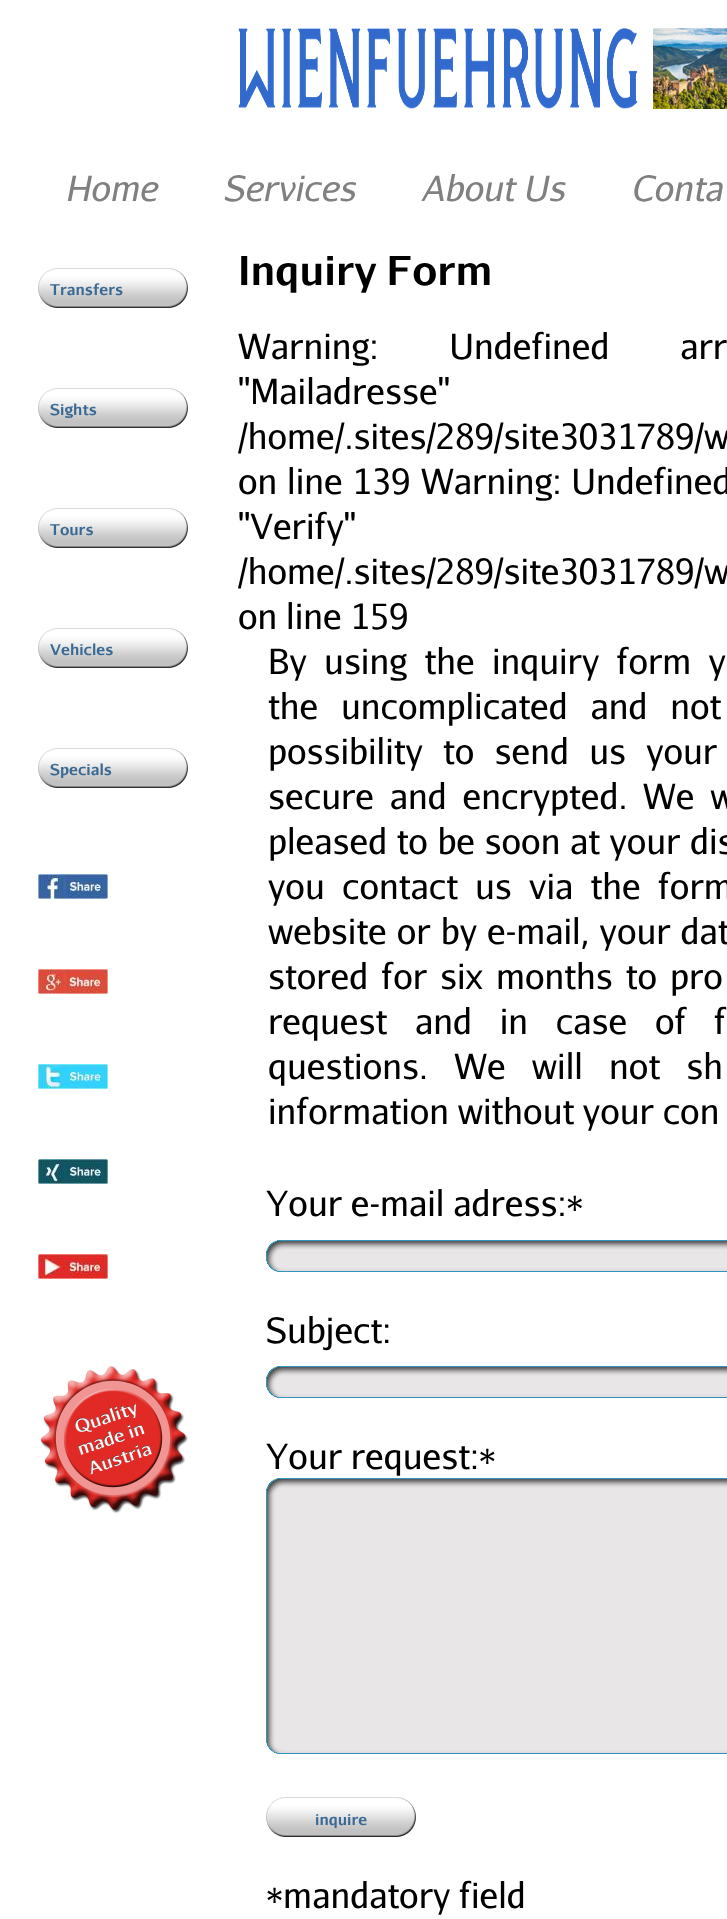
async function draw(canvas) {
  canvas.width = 727
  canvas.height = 1919
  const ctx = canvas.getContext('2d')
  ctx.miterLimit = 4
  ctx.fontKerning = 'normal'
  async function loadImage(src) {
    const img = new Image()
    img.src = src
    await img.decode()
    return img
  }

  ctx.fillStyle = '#fff'
  ctx.fillRect(0, 0, 727, 1919)
  ctx.drawImage(await loadImage('image0.png'), 653, 28, 74, 81)
  ctx.drawImage(await loadImage('image1.png'), 238, 28, 400, 81)
  ctx.font = 'italic 35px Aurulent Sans'
  ctx.fillStyle = '#808080'
  ctx.fillText('Home', 65, 201)
  ctx.fillText('Services', 223, 201)
  ctx.fillText('About Us', 421, 201)
  ctx.fillText('Conta', 631, 201)
  ctx.drawImage(await loadImage('image2.png'), 38, 268, 150, 40)
  ctx.font = 'bold 15px Aurulent Sans'
  ctx.fillStyle = '#3a6993'
  ctx.fillText('Transfers', 50, 295)
  ctx.drawImage(await loadImage('image2.png'), 38, 388, 150, 40)
  ctx.fillText('Sights', 50, 415)
  ctx.drawImage(await loadImage('image2.png'), 38, 508, 150, 40)
  ctx.fillText('Tours', 50, 535)
  ctx.drawImage(await loadImage('image2.png'), 38, 628, 150, 40)
  ctx.fillText('Vehicles', 50, 655)
  ctx.drawImage(await loadImage('image2.png'), 38, 748, 150, 40)
  ctx.fillText('Specials', 50, 775)
  ctx.drawImage(await loadImage('image3.png'), 38, 874, 70, 25)
  ctx.drawImage(await loadImage('image4.png'), 38, 969, 70, 25)
  ctx.drawImage(await loadImage('image5.png'), 38, 1064, 70, 25)
  ctx.drawImage(await loadImage('image6.png'), 38, 1159, 70, 25)
  ctx.drawImage(await loadImage('image7.png'), 38, 1254, 70, 25)
  ctx.drawImage(await loadImage('image8.png'), 41, 1366, 147, 147)
  ctx.font = 'bold 40px Aurulent Sans'
  ctx.fillStyle = '#000'
  ctx.fillText('Inquiry Form', 238, 285)
  ctx.wordSpacing = '62px'
  ctx.font = '35px Aurulent Sans'
  ctx.fillText('Warning: Undefined arr', 238, 359)
  ctx.wordSpacing = '400px'
  ctx.fillText('"Mailadresse"', 238, 404)
  ctx.wordSpacing = '0px'
  ctx.fillText('/home/.sites/289/site3031789/w', 238, 449)
  ctx.wordSpacing = '1px'
  ctx.fillText('on line 139', 238, 494)
  ctx.fillText('Warning: Undefined', 421, 494)
  ctx.wordSpacing = '494px'
  ctx.fillText('"Verify"', 238, 539)
  ctx.wordSpacing = '0px'
  ctx.fillText('/home/.sites/289/site3031789/w', 238, 584)
  ctx.fillText('on line 159', 238, 629)
  ctx.wordSpacing = '8.5px'
  ctx.fillText('By using the inquiry form y', 268, 674)
  ctx.wordSpacing = '14px'
  ctx.fillText('the uncomplicated and not', 268, 719)
  ctx.wordSpacing = '11.5px'
  ctx.fillText('possibility to send us your', 268, 764)
  ctx.wordSpacing = '7px'
  ctx.fillText('secure and encrypted. We w', 268, 809)
  ctx.wordSpacing = '0.75px'
  ctx.fillText('pleased to be soon at your dis', 268, 854)
  ctx.wordSpacing = '8.5px'
  ctx.fillText('you contact us via the form', 268, 899)
  ctx.wordSpacing = '1.25px'
  ctx.fillText('website or by e-mail, your dat', 268, 944)
  ctx.wordSpacing = '4.25px'
  ctx.fillText('stored for six months to pro', 268, 989)
  ctx.wordSpacing = '19px'
  ctx.fillText('request and in case of f', 268, 1034)
  ctx.wordSpacing = '17.5px'
  ctx.fillText('questions. We will not sh', 268, 1079)
  ctx.wordSpacing = '0px'
  ctx.fillText('information without your con', 268, 1124)
  ctx.fillText('Your e-mail adress:*', 266, 1216)
  ctx.fillStyle = '#e8e6e6'
  ctx.fillRect(286, 1241, 441, 30)
  ctx.drawImage(await loadImage('image9.png'), 266, 1240, 461, 32)
  ctx.fillStyle = '#000'
  ctx.fillText('Subject:', 266, 1343)
  ctx.fillStyle = '#e8e6e6'
  ctx.fillRect(286, 1367, 441, 30)
  ctx.drawImage(await loadImage('image9.png'), 266, 1366, 461, 32)
  ctx.fillStyle = '#000'
  ctx.fillText('Your request:*', 266, 1469)
  ctx.fillStyle = '#e8e6e6'
  ctx.fillRect(267, 1479, 460, 274)
  ctx.drawImage(await loadImage('image10.png'), 266, 1478, 461, 276)
  ctx.drawImage(await loadImage('image2.png'), 266, 1797, 150, 40)
  ctx.font = 'bold 15px Aurulent Sans'
  ctx.fillStyle = '#3a6993'
  ctx.fillText('inquire', 315, 1825)
  ctx.font = '35px Aurulent Sans'
  ctx.fillStyle = '#000'
  ctx.fillText('*mandatory field', 266, 1908)
}

draw(document.querySelector('canvas'))
